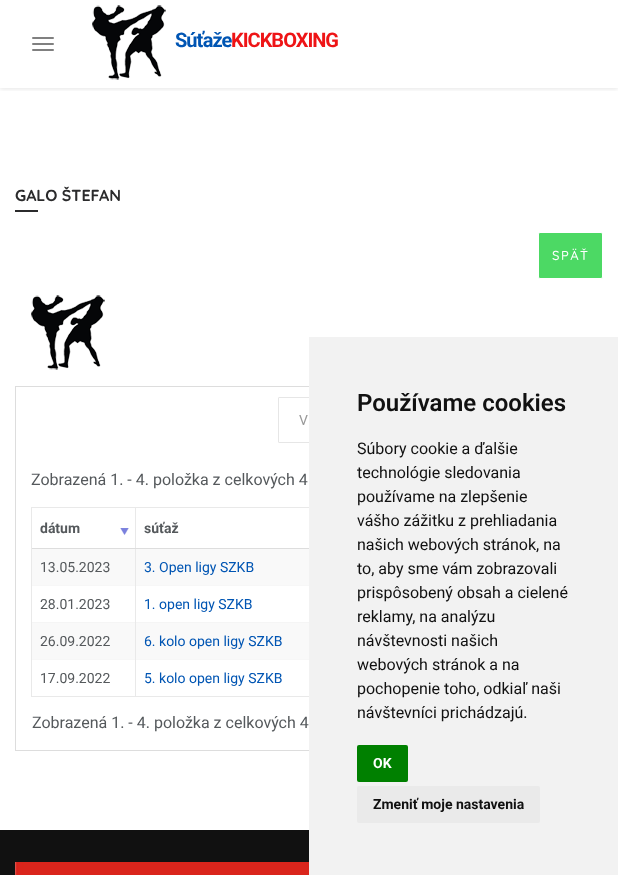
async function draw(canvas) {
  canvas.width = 618
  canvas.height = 875
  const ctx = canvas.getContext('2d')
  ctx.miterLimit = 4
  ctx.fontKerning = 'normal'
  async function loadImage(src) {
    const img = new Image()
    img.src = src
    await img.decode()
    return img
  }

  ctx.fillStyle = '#fff'
  ctx.fillRect(0, 0, 618, 875)
  ctx.fillStyle = '#f7f7f7'
  ctx.fillRect(32, 585, 277, 1)
  ctx.fillRect(32, 659, 277, 1)
  ctx.save()
  ctx.beginPath()
  ctx.rect(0, 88, 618, 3)
  ctx.clip()
  ctx.fillStyle = '#0000001a'
  ctx.filter = 'blur(2.5px)'
  ctx.beginPath()
  ctx.rect(0, 1, 618, 88)
  ctx.fill()
  ctx.filter = 'none'
  ctx.restore()
  ctx.fillStyle = '#808080'
  ctx.beginPath()
  ctx.roundRect(32, 37, 22, 2, 1)
  ctx.fill()
  ctx.beginPath()
  ctx.roundRect(32, 43, 22, 2, 1)
  ctx.fill()
  ctx.beginPath()
  ctx.roundRect(32, 49, 22, 2, 1)
  ctx.fill()
  ctx.drawImage(await loadImage('image0.png'), 92, 5, 74, 75)
  ctx.letterSpacing = '-1px'
  ctx.font = 'bold 20px Roboto'
  ctx.fillStyle = '#0055b3'
  ctx.fillText('Súťaže', 175, 47)
  ctx.fillStyle = '#ee1416'
  ctx.fillText('KICKBOXING', 231, 47)
  ctx.letterSpacing = '0px'
  ctx.font = 'bold 16px Quicksand'
  ctx.fillStyle = '#2b2b2c'
  ctx.fillText('GALO ŠTEFAN', 15, 201)
  ctx.fillRect(15, 210, 23, 2)
  ctx.fillStyle = '#4cd964'
  ctx.beginPath()
  ctx.roundRect(538.5, 232.5, 64, 46, 1.5)
  ctx.fill()
  ctx.strokeStyle = '#fff'
  ctx.stroke()
  ctx.letterSpacing = '1.5px'
  ctx.font = '500 13px Quicksand'
  ctx.fillStyle = '#fff'
  ctx.fillText('SPÄŤ', 552, 260)
  ctx.drawImage(await loadImage('image0.png'), 31, 295, 74, 75)
  ctx.strokeStyle = '#ddd'
  ctx.strokeRect(15.5, 386.5, 587, 364)
  ctx.beginPath()
  ctx.roundRect(278.5, 397.5, 219, 45, 0.5)
  ctx.strokeStyle = '#e6e6e6'
  ctx.stroke()
  ctx.letterSpacing = '0px'
  ctx.font = '14px Roboto'
  ctx.fillStyle = '#999'
  ctx.fillText('V', 299, 425)
  ctx.font = '16px Roboto'
  ctx.fillStyle = '#55595c'
  ctx.fillText('Zobrazená 1. - 4. položka z celkových 4', 31, 485)
  ctx.strokeStyle = '#e9e9e9'
  ctx.strokeRect(31.5, 507.5, 555, 189)
  ctx.fillStyle = '#f9f9f9'
  ctx.fillRect(32, 549, 277, 36)
  ctx.fillRect(32, 623, 277, 36)
  ctx.fillStyle = '#f5f5f5'
  ctx.fillRect(32, 622, 277, 1)
  ctx.fillStyle = '#e9e9e9'
  ctx.fillRect(135, 548, 1, 148)
  ctx.fillStyle = '#ddd'
  ctx.fillRect(135, 548, 174, 1)
  ctx.fillStyle = '#e9e9e9'
  ctx.fillRect(135, 508, 1, 41)
  ctx.fillStyle = '#ddd'
  ctx.fillRect(32, 548, 104, 1)
  ctx.drawImage(await loadImage('image1.png'), 120, 528, 9, 7)
  ctx.font = 'bold 14px Roboto'
  ctx.fillStyle = '#55595c'
  ctx.fillText('dátum', 40, 533)
  ctx.fillText('súťaž', 144, 533)
  ctx.font = '14px Roboto'
  ctx.fillText('13.05.2023', 40, 572)
  ctx.fillStyle = '#0055b3'
  ctx.fillText('3. Open ligy SZKB', 144, 572)
  ctx.fillStyle = '#55595c'
  ctx.fillText('28.01.2023', 40, 609)
  ctx.fillStyle = '#0055b3'
  ctx.fillText('1. open ligy SZKB', 144, 609)
  ctx.fillStyle = '#55595c'
  ctx.fillText('26.09.2022', 40, 646)
  ctx.fillStyle = '#0055b3'
  ctx.fillText('6. kolo open ligy SZKB', 144, 646)
  ctx.fillStyle = '#55595c'
  ctx.fillText('17.09.2022', 40, 683)
  ctx.fillStyle = '#0055b3'
  ctx.fillText('5. kolo open ligy SZKB', 144, 683)
  ctx.font = '16px Roboto'
  ctx.fillStyle = '#55595c'
  ctx.fillText('Zobrazená 1. - 4. položka z celkových 4', 32, 728)
  ctx.fillStyle = '#111'
  ctx.fillRect(0, 830, 309, 45)
  ctx.drawImage(await loadImage('image2.png'), 15, 862, 294, 13)
  ctx.fillStyle = '#f2f2f2'
  ctx.fillRect(309, 337, 309, 538)
  ctx.font = '600 24px Roboto'
  ctx.fillStyle = '#111'
  ctx.fillText('Používame cookies', 357, 411)
  ctx.font = '16px Roboto'
  ctx.fillText('Súbory cookie a ďalšie', 357, 454)
  ctx.fillText('technológie sledovania', 357, 478)
  ctx.fillText('používame na zlepšenie', 357, 502)
  ctx.fillText('vášho zážitku z prehliadania', 357, 526)
  ctx.fillText('našich webových stránok, na', 357, 550)
  ctx.fillText('to, aby sme vám zobrazovali', 357, 574)
  ctx.fillText('prispôsobený obsah a cielené', 357, 598)
  ctx.fillText('reklamy, na analýzu', 357, 622)
  ctx.fillText('návštevnosti našich', 357, 646)
  ctx.fillText('webových stránok a na', 357, 670)
  ctx.fillText('pochopenie toho, odkiaľ naši', 357, 694)
  ctx.fillText('návštevníci prichádzajú.', 357, 718)
  ctx.fillStyle = '#008000'
  ctx.beginPath()
  ctx.roundRect(357, 745, 51, 37, 2)
  ctx.fill()
  ctx.font = 'bold 14px Roboto'
  ctx.fillStyle = '#fff'
  ctx.fillText('OK', 373, 768)
  ctx.fillStyle = '#eaeaea'
  ctx.beginPath()
  ctx.roundRect(357, 786, 183, 37, 2)
  ctx.fill()
  ctx.fillStyle = '#111'
  ctx.fillText('Zmeniť moje nastavenia', 373, 809)
}

draw(document.querySelector('canvas'))
